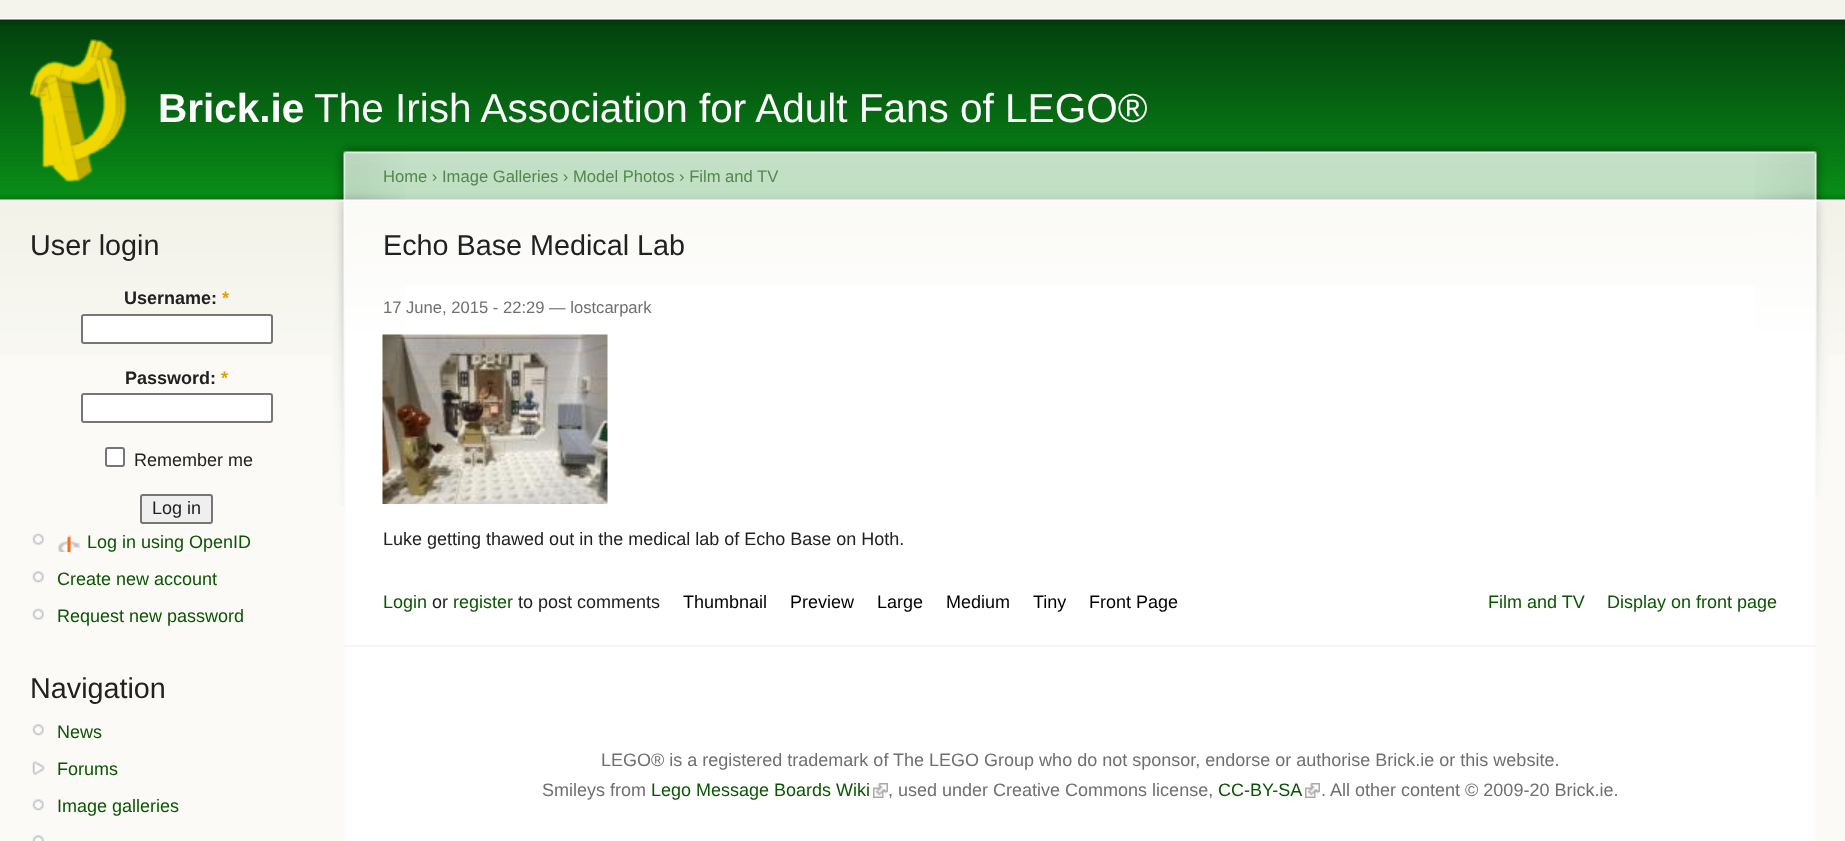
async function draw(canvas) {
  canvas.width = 1845
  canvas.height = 841
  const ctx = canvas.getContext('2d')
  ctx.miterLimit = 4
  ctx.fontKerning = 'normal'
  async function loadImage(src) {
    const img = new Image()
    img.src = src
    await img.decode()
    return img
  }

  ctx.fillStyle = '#fbfaf7'
  ctx.fillRect(0, 0, 1845, 841)
  ctx.fillStyle = '#f5f4ec'
  ctx.fillRect(0, 0, 1845, 18)
  ctx.drawImage(await loadImage('image0.png'), 0, 18, 1845, 337)
  ctx.drawImage(await loadImage('image1.png'), 30, 39, 97, 143)
  ctx.font = 'bold 40.5px Liberation Sans'
  ctx.fillStyle = '#fff'
  ctx.fillText('Brick.ie', 158, 122)
  ctx.font = '40.5px Liberation Sans'
  ctx.fillText('The Irish Association for Adult Fans of LEGO®', 314, 122)
  ctx.font = '28.75px Liberation Sans'
  ctx.fillStyle = '#212121'
  ctx.fillText('User login', 30, 255)
  ctx.font = 'bold 18px Liberation Sans'
  ctx.fillText('Username:', 124, 304)
  ctx.fillStyle = '#e69d00'
  ctx.fillText('*', 222, 304)
  ctx.fillStyle = '#fff'
  ctx.beginPath()
  ctx.roundRect(82, 315, 190, 28, 2)
  ctx.fill()
  ctx.strokeStyle = '#767676'
  ctx.lineWidth = 2
  ctx.stroke()
  ctx.fillStyle = '#212121'
  ctx.fillText('Password:', 125, 384)
  ctx.fillStyle = '#e69d00'
  ctx.fillText('*', 221, 384)
  ctx.fillStyle = '#fff'
  ctx.beginPath()
  ctx.roundRect(82, 394, 190, 28, 2)
  ctx.fill()
  ctx.stroke()
  ctx.beginPath()
  ctx.roundRect(106, 448, 18, 18, 2)
  ctx.fill()
  ctx.stroke()
  ctx.font = '18px Liberation Sans'
  ctx.fillStyle = '#212121'
  ctx.fillText('Remember me', 134, 466)
  ctx.fillStyle = '#efefef'
  ctx.beginPath()
  ctx.roundRect(141, 495, 71, 28, 2)
  ctx.fill()
  ctx.stroke()
  ctx.fillStyle = '#212121'
  ctx.fillText('Log in', 152, 514)
  ctx.drawImage(await loadImage('image2.png'), 32, 533, 12, 12)
  ctx.drawImage(await loadImage('image3.png'), 58, 535, 22, 17)
  ctx.fillStyle = '#0a5502'
  ctx.fillText('Log in using OpenID', 87, 548)
  ctx.drawImage(await loadImage('image4.png'), 32, 571, 12, 12)
  ctx.fillText('Create new account', 57, 585)
  ctx.drawImage(await loadImage('image2.png'), 32, 608, 12, 12)
  ctx.fillText('Request new password', 57, 622)
  ctx.font = '28.75px Liberation Sans'
  ctx.fillStyle = '#212121'
  ctx.fillText('Navigation', 30, 698)
  ctx.drawImage(await loadImage('image4.png'), 32, 724, 12, 12)
  ctx.font = '18px Liberation Sans'
  ctx.fillStyle = '#0a5502'
  ctx.fillText('News', 57, 738)
  ctx.drawImage(await loadImage('image5.png'), 32, 760, 13, 16)
  ctx.fillText('Forums', 57, 775)
  ctx.drawImage(await loadImage('image4.png'), 32, 799, 12, 12)
  ctx.fillText('Image galleries', 57, 812)
  ctx.drawImage(await loadImage('image6.png'), 32, 835, 12, 6)
  ctx.fillStyle = '#fff'
  ctx.fillRect(345, 286, 1470, 555)
  ctx.drawImage(await loadImage('image7.png'), 345, 138, 1470, 148)
  ctx.drawImage(await loadImage('image8.png'), 1755, 145, 73, 352)
  ctx.drawImage(await loadImage('image9.png'), 332, 145, 73, 361)
  ctx.font = '16.6px Liberation Sans'
  ctx.fillStyle = '#528850'
  ctx.fillText('Home › Image Galleries › Model Photos › Film and TV', 383, 182)
  ctx.font = '28.75px Liberation Sans'
  ctx.fillStyle = '#212121'
  ctx.fillText('Echo Base Medical Lab', 383, 255)
  ctx.fillStyle = '#f6f6f5'
  ctx.fillRect(344, 645, 1473, 2)
  ctx.font = '16.6px Liberation Sans'
  ctx.fillStyle = '#6f6f6f'
  ctx.fillText('17 June, 2015 - 22:29 — lostcarpark', 383, 313)
  ctx.drawImage(await loadImage('image10.png'), 382, 334, 226, 170)
  ctx.font = '18px Liberation Sans'
  ctx.fillStyle = '#212121'
  ctx.fillText('Luke getting thawed out in the medical lab of Echo Base on Hoth.', 383, 545)
  ctx.fillStyle = '#0a5502'
  ctx.fillText('Login', 383, 608)
  ctx.fillStyle = '#212121'
  ctx.fillText('or', 432, 608)
  ctx.fillStyle = '#0a5502'
  ctx.fillText('register', 453, 608)
  ctx.fillStyle = '#212121'
  ctx.fillText('to post comments', 518, 608)
  ctx.fillStyle = '#000'
  ctx.fillText('Thumbnail', 683, 608)
  ctx.fillText('Preview', 790, 608)
  ctx.fillText('Large', 877, 608)
  ctx.fillText('Medium', 946, 608)
  ctx.fillText('Tiny', 1033, 608)
  ctx.fillText('Front Page', 1089, 608)
  ctx.fillStyle = '#0a5502'
  ctx.fillText('Film and TV', 1488, 608)
  ctx.fillText('Display on front page', 1607, 608)
  ctx.fillStyle = '#6f6f6f'
  ctx.fillText('LEGO® is a registered trademark of The LEGO Group who do not sponsor, endorse or authorise Brick.ie or this website.', 601, 766)
  ctx.fillText('Smileys from', 542, 796)
  ctx.fillStyle = '#0a5502'
  ctx.fillText('Lego Message Boards Wiki', 651, 796)
  ctx.drawImage(await loadImage('image11.png'), 873, 783, 15, 15)
  ctx.fillStyle = '#6f6f6f'
  ctx.fillText(', used under Creative Commons license,', 888, 796)
  ctx.fillStyle = '#0a5502'
  ctx.fillText('CC-BY-SA', 1218, 796)
  ctx.drawImage(await loadImage('image11.png'), 1305, 783, 15, 15)
  ctx.fillStyle = '#6f6f6f'
  ctx.fillText('. All other content © 2009-20 Brick.ie.', 1321, 796)
}

draw(document.querySelector('canvas'))
